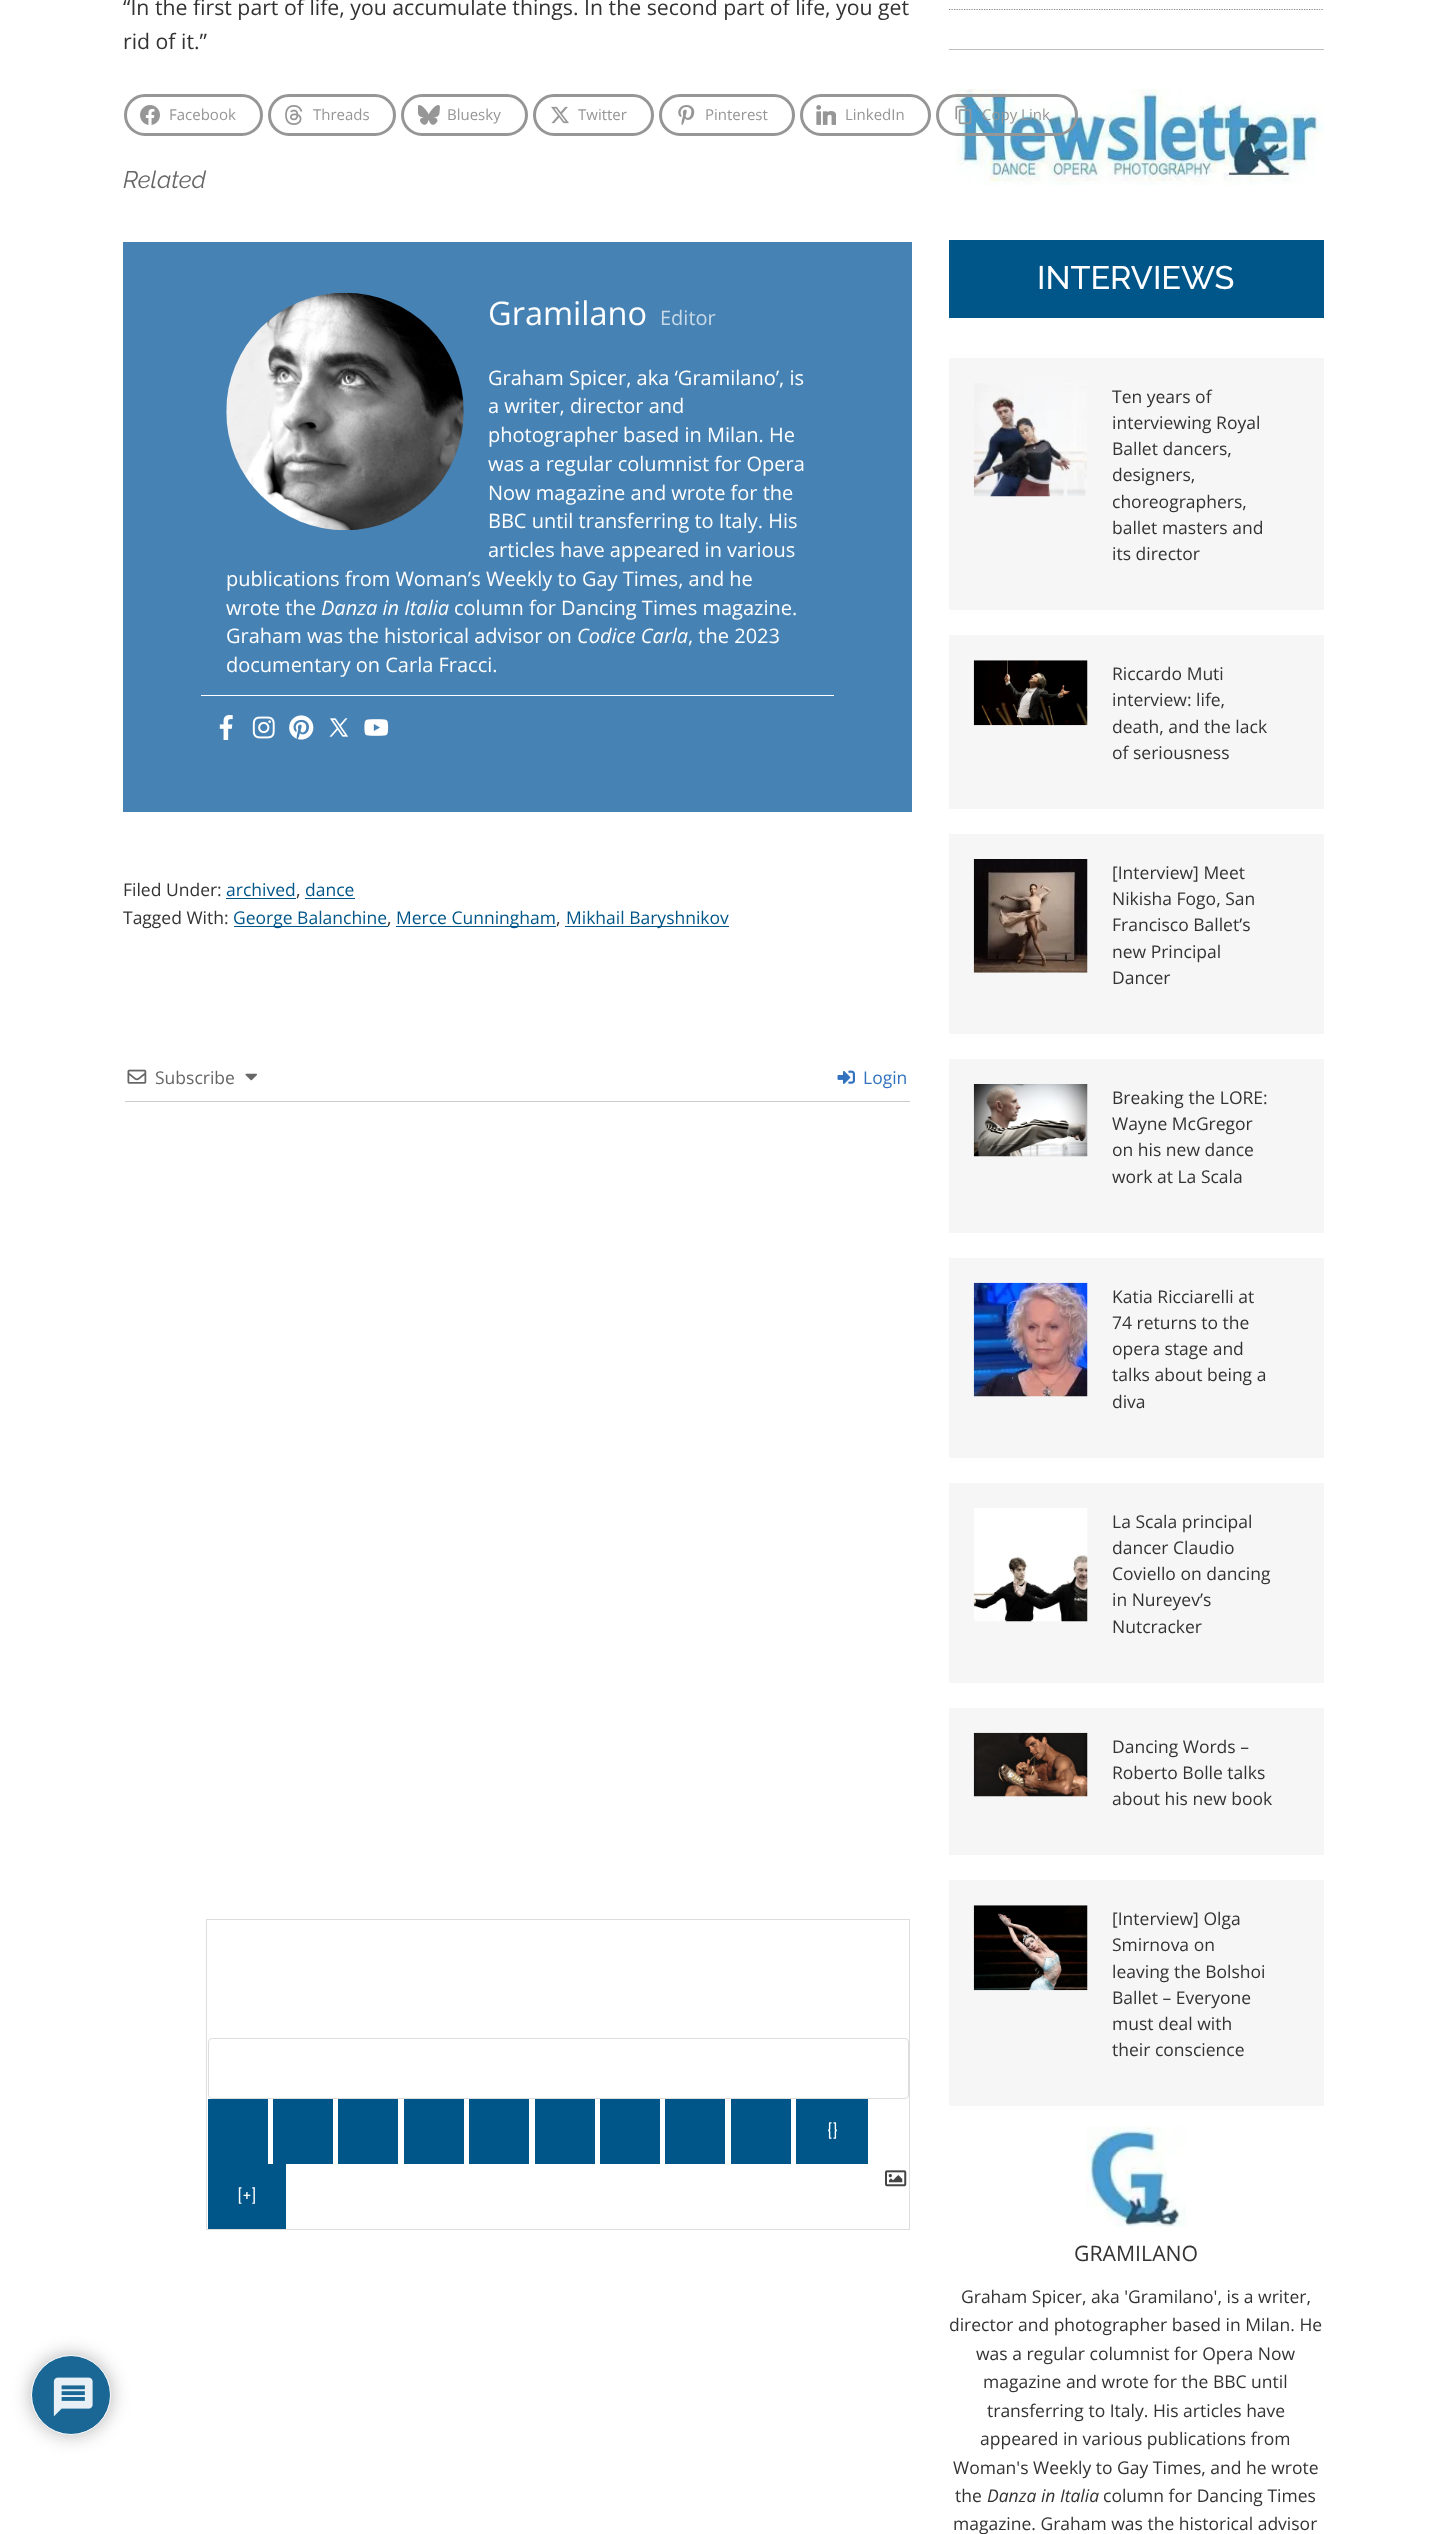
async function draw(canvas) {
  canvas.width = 1446
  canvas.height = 2534
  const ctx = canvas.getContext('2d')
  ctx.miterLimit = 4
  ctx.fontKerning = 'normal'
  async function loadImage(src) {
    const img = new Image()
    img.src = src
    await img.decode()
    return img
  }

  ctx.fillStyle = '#fff'
  ctx.fillRect(0, 0, 1446, 2534)
  ctx.fillStyle = '#b3b3b3'
  ctx.filter = 'blur(9.5px)'
  ctx.beginPath()
  ctx.roundRect(31, 2355, 80, 80, 40)
  ctx.fill()
  ctx.filter = 'none'
  ctx.fillStyle = '#1a6795'
  ctx.beginPath()
  ctx.arc(71, 2395, 39.5, 0, 2 * Math.PI)
  ctx.fill()
  ctx.strokeStyle = '#fff'
  ctx.stroke()
  ctx.drawImage(await loadImage('image0.png'), 53, 2377, 40, 40)
  ctx.font = '21.25px Open Sans'
  ctx.fillStyle = '#333'
  ctx.fillText('“In the first part of life, you accumulate things. In the second part of life, you get', 123, 15)
  ctx.fillText('rid of it.”', 123, 49)
  ctx.beginPath()
  ctx.roundRect(125.5, 95.5, 136, 39, 19.5)
  ctx.strokeStyle = '#969696'
  ctx.lineWidth = 3
  ctx.stroke()
  ctx.drawImage(await loadImage('image1.png'), 140, 105, 20, 20)
  ctx.font = '15px Open Sans'
  ctx.fillStyle = '#969696'
  ctx.fillText('Facebook', 169, 120)
  ctx.beginPath()
  ctx.roundRect(269.5, 95.5, 125, 39, 19.5)
  ctx.stroke()
  ctx.drawImage(await loadImage('image2.png'), 285, 105, 18, 20)
  ctx.fillText('Threads', 313, 120)
  ctx.beginPath()
  ctx.roundRect(402.5, 95.5, 124, 39, 19.5)
  ctx.stroke()
  ctx.drawImage(await loadImage('image3.png'), 418, 105, 22, 20)
  ctx.fillText('Bluesky', 447, 120)
  ctx.beginPath()
  ctx.roundRect(534.5, 95.5, 118, 39, 19.5)
  ctx.stroke()
  ctx.drawImage(await loadImage('image4.png'), 551, 106, 18, 18)
  ctx.fillText('Twitter', 578, 120)
  ctx.beginPath()
  ctx.roundRect(660.5, 95.5, 133, 39, 19.5)
  ctx.stroke()
  ctx.drawImage(await loadImage('image5.png'), 678, 105, 17, 20)
  ctx.fillText('Pinterest', 705, 120)
  ctx.beginPath()
  ctx.roundRect(801.5, 95.5, 128, 39, 19.5)
  ctx.stroke()
  ctx.drawImage(await loadImage('image6.png'), 816, 105, 20, 20)
  ctx.fillText('LinkedIn', 845, 120)
  ctx.drawImage(await loadImage('image18.png'), 955, 89, 369, 96)
  ctx.beginPath()
  ctx.roundRect(937.5, 95.5, 139, 39, 19.5)
  ctx.stroke()
  ctx.drawImage(await loadImage('image7.png'), 955, 105, 17, 20)
  ctx.fillText('Copy Link', 982, 120)
  ctx.font = 'italic 24px Raleway'
  ctx.fillStyle = '#666'
  ctx.fillText('Related', 123, 188)
  ctx.fillStyle = '#4682b4'
  ctx.fillRect(123, 242, 789, 570)
  ctx.drawImage(await loadImage('image8.png'), 226, 292, 238, 239)
  ctx.font = '32.5px Open Sans'
  ctx.fillStyle = '#fff'
  ctx.fillText('Gramilano', 488, 325)
  ctx.font = '20px Open Sans'
  ctx.fillStyle = '#c8dae9'
  ctx.fillText('Editor', 660, 325)
  ctx.fillStyle = '#fff'
  ctx.fillText('Graham Spicer, aka ‘Gramilano’, is', 488, 385)
  ctx.fillText('a writer, director and', 488, 413)
  ctx.fillText('photographer based in Milan. He', 488, 442)
  ctx.fillText('was a regular columnist for Opera', 488, 471)
  ctx.fillText('Now magazine and wrote for the', 488, 500)
  ctx.fillText('BBC until transferring to Italy. His', 488, 528)
  ctx.fillText('articles have appeared in various', 488, 557)
  ctx.fillText('publications from Woman’s Weekly to Gay Times, and he', 226, 586)
  ctx.fillText('wrote the', 226, 615)
  ctx.font = 'italic 20px Open Sans'
  ctx.fillText('Danza in Italia', 321, 615)
  ctx.font = '20px Open Sans'
  ctx.fillText('column for Dancing Times magazine.', 454, 615)
  ctx.fillText('Graham was the historical advisor on', 226, 643)
  ctx.font = 'italic 20px Open Sans'
  ctx.fillText('Codice Carla', 577, 643)
  ctx.font = '20px Open Sans'
  ctx.fillText(', the 2023', 688, 643)
  ctx.fillText('documentary on Carla Fracci.', 226, 672)
  ctx.fillRect(201, 695, 633, 1)
  ctx.drawImage(await loadImage('image9.png'), 219, 715, 14, 25)
  ctx.drawImage(await loadImage('image10.png'), 252, 716, 23, 23)
  ctx.drawImage(await loadImage('image11.png'), 289, 715, 25, 25)
  ctx.drawImage(await loadImage('image12.png'), 329, 718, 20, 19)
  ctx.drawImage(await loadImage('image13.png'), 364, 719, 25, 17)
  ctx.font = '17.5px Open Sans'
  ctx.fillStyle = '#333'
  ctx.fillText('Filed Under:', 123, 896)
  ctx.fillStyle = '#005689'
  ctx.fillText('archived', 226, 896)
  ctx.fillRect(226, 898, 70, 1)
  ctx.fillStyle = '#333'
  ctx.fillText(',', 296, 896)
  ctx.fillStyle = '#005689'
  ctx.fillText('dance', 305, 896)
  ctx.fillRect(305, 898, 50, 1)
  ctx.fillStyle = '#333'
  ctx.fillText('Tagged With:', 123, 924)
  ctx.fillStyle = '#005689'
  ctx.fillRect(234, 926, 154, 1)
  ctx.fillText('George Balanchine', 233, 924)
  ctx.fillStyle = '#333'
  ctx.fillText(',', 387, 924)
  ctx.fillStyle = '#005689'
  ctx.fillRect(396, 926, 160, 1)
  ctx.fillText('Merce Cunningham', 396, 924)
  ctx.fillStyle = '#333'
  ctx.fillText(',', 556, 924)
  ctx.fillStyle = '#005689'
  ctx.fillRect(565, 926, 164, 1)
  ctx.fillText('Mikhail Baryshnikov', 566, 924)
  ctx.fillStyle = '#ccc'
  ctx.fillRect(125, 1101, 785, 1)
  ctx.drawImage(await loadImage('image14.png'), 127, 1069, 20, 15)
  ctx.fillStyle = '#666'
  ctx.fillText('Subscribe', 155, 1084)
  ctx.drawImage(await loadImage('image15.png'), 245, 1073, 12, 8)
  ctx.drawImage(await loadImage('image16.png'), 837, 1070, 18, 14)
  ctx.fillStyle = '#3272bf'
  ctx.fillText('Login', 863, 1084)
  ctx.fillStyle = '#ddd'
  ctx.fillRect(206, 1919, 704, 1)
  ctx.fillRect(909, 1919, 1, 311)
  ctx.fillRect(206, 1919, 1, 180)
  ctx.beginPath()
  ctx.roundRect(208.5, 2038.5, 700, 60, 3.5)
  ctx.strokeStyle = '#ddd'
  ctx.lineWidth = 1
  ctx.stroke()
  ctx.fillRect(206, 2229, 704, 1)
  ctx.fillRect(206, 2099, 1, 131)
  ctx.fillStyle = '#005689'
  ctx.fillRect(208, 2099, 60, 65)
  ctx.fillRect(273, 2099, 60, 65)
  ctx.fillRect(338, 2099, 60, 65)
  ctx.fillRect(404, 2099, 60, 65)
  ctx.fillRect(469, 2099, 60, 65)
  ctx.fillRect(535, 2099, 60, 65)
  ctx.fillRect(600, 2099, 60, 65)
  ctx.fillRect(665, 2099, 60, 65)
  ctx.fillRect(731, 2099, 60, 65)
  ctx.fillRect(796, 2099, 72, 65)
  ctx.font = '21.25px Raleway'
  ctx.fillStyle = '#fff'
  ctx.fillText('{}', 827, 2138)
  ctx.drawImage(await loadImage('image17.png'), 885, 2170, 22, 17)
  ctx.fillStyle = '#005689'
  ctx.fillRect(208, 2164, 78, 65)
  ctx.fillStyle = '#fff'
  ctx.fillText('[+]', 237, 2203)
  ctx.beginPath()
  ctx.moveTo(949, 9.5)
  ctx.lineTo(1324, 9.5)
  ctx.strokeStyle = '#888'
  ctx.lineWidth = 1.2
  ctx.setLineDash([1.25, 1.25])
  ctx.stroke()
  ctx.fillStyle = '#c0c0c0'
  ctx.fillRect(949, 49, 375, 1)
  ctx.fillStyle = '#005689'
  ctx.fillRect(949, 240, 375, 78)
  ctx.font = '500 32.5px Raleway'
  ctx.fillStyle = '#fff'
  ctx.fillText('INTERVIEWS', 1037, 289)
  ctx.fillStyle = '#f6f6f6'
  ctx.fillRect(949, 358, 375, 252)
  ctx.drawImage(await loadImage('image19.png'), 973, 383, 114, 114)
  ctx.font = '17.5px Open Sans'
  ctx.fillStyle = '#333'
  ctx.fillText('Ten years of', 1112, 403)
  ctx.fillText('interviewing Royal', 1112, 429)
  ctx.fillText('Ballet dancers,', 1112, 455)
  ctx.fillText('designers,', 1112, 481)
  ctx.fillText('choreographers,', 1112, 508)
  ctx.fillText('ballet masters and', 1112, 534)
  ctx.fillText('its director', 1112, 560)
  ctx.fillStyle = '#f6f6f6'
  ctx.fillRect(949, 635, 375, 174)
  ctx.drawImage(await loadImage('image20.png'), 973, 660, 115, 66)
  ctx.fillStyle = '#333'
  ctx.fillText('Riccardo Muti', 1112, 680)
  ctx.fillText('interview: life,', 1112, 706)
  ctx.fillText('death, and the lack', 1112, 733)
  ctx.fillText('of seriousness', 1112, 759)
  ctx.fillStyle = '#f6f6f6'
  ctx.fillRect(949, 834, 375, 200)
  ctx.drawImage(await loadImage('image21.png'), 973, 859, 115, 114)
  ctx.fillStyle = '#333'
  ctx.fillText('[Interview] Meet', 1112, 879)
  ctx.fillText('Nikisha Fogo, San', 1112, 905)
  ctx.fillText('Francisco Ballet’s', 1112, 931)
  ctx.fillText('new Principal', 1112, 958)
  ctx.fillText('Dancer', 1112, 984)
  ctx.fillStyle = '#f6f6f6'
  ctx.fillRect(949, 1059, 375, 174)
  ctx.drawImage(await loadImage('image22.png'), 973, 1084, 115, 73)
  ctx.fillStyle = '#333'
  ctx.fillText('Breaking the LORE:', 1112, 1104)
  ctx.fillText('Wayne McGregor', 1112, 1130)
  ctx.fillText('on his new dance', 1112, 1156)
  ctx.fillText('work at La Scala', 1112, 1183)
  ctx.fillStyle = '#f6f6f6'
  ctx.fillRect(949, 1258, 375, 200)
  ctx.drawImage(await loadImage('image23.png'), 973, 1282, 115, 115)
  ctx.fillStyle = '#333'
  ctx.fillText('Katia Ricciarelli at', 1112, 1303)
  ctx.fillText('74 returns to the', 1112, 1329)
  ctx.fillText('opera stage and', 1112, 1355)
  ctx.fillText('talks about being a', 1112, 1381)
  ctx.fillText('diva', 1112, 1408)
  ctx.fillStyle = '#f6f6f6'
  ctx.fillRect(949, 1483, 375, 200)
  ctx.drawImage(await loadImage('image24.png'), 973, 1508, 115, 114)
  ctx.fillStyle = '#333'
  ctx.fillText('La Scala principal', 1112, 1528)
  ctx.fillText('dancer Claudio', 1112, 1554)
  ctx.fillText('Coviello on dancing', 1112, 1580)
  ctx.fillText('in Nureyev’s', 1112, 1606)
  ctx.fillText('Nutcracker', 1112, 1633)
  ctx.fillStyle = '#f6f6f6'
  ctx.fillRect(949, 1708, 375, 147)
  ctx.drawImage(await loadImage('image25.png'), 973, 1732, 115, 65)
  ctx.fillStyle = '#333'
  ctx.fillText('Dancing Words –', 1112, 1753)
  ctx.fillText('Roberto Bolle talks', 1112, 1779)
  ctx.fillText('about his new book', 1112, 1805)
  ctx.fillStyle = '#f6f6f6'
  ctx.fillRect(949, 1880, 375, 226)
  ctx.drawImage(await loadImage('image26.png'), 973, 1905, 115, 86)
  ctx.fillStyle = '#333'
  ctx.fillText('[Interview] Olga', 1112, 1925)
  ctx.fillText('Smirnova on', 1112, 1951)
  ctx.fillText('leaving the Bolshoi', 1112, 1978)
  ctx.fillText('Ballet – Everyone', 1112, 2004)
  ctx.fillText('must deal with', 1112, 2030)
  ctx.fillText('their conscience', 1112, 2056)
  ctx.drawImage(await loadImage('image27.png'), 1086, 2126, 100, 101)
  ctx.font = '21.25px Open Sans'
  ctx.fillText('GRAMILANO', 1074, 2261)
  ctx.font = '17.5px Open Sans'
  ctx.fillText('Graham Spicer, aka \'Gramilano\', is a writer,', 961, 2303)
  ctx.fillText('director and photographer based in Milan. He', 949, 2331)
  ctx.fillText('was a regular columnist for Opera Now', 976, 2360)
  ctx.fillText('magazine and wrote for the BBC until', 983, 2388)
  ctx.fillText('transferring to Italy. His articles have', 987, 2417)
  ctx.fillText('appeared in various publications from', 980, 2445)
  ctx.fillText('Woman\'s Weekly to Gay Times, and he wrote', 953, 2474)
  ctx.fillText('the', 955, 2502)
  ctx.font = 'italic 17.5px Open Sans'
  ctx.fillText('Danza in Italia', 987, 2502)
  ctx.font = '17.5px Open Sans'
  ctx.fillText('column for Dancing Times', 1103, 2502)
  ctx.fillText('magazine. Graham was the historical advisor', 953, 2530)
}

draw(document.querySelector('canvas'))
